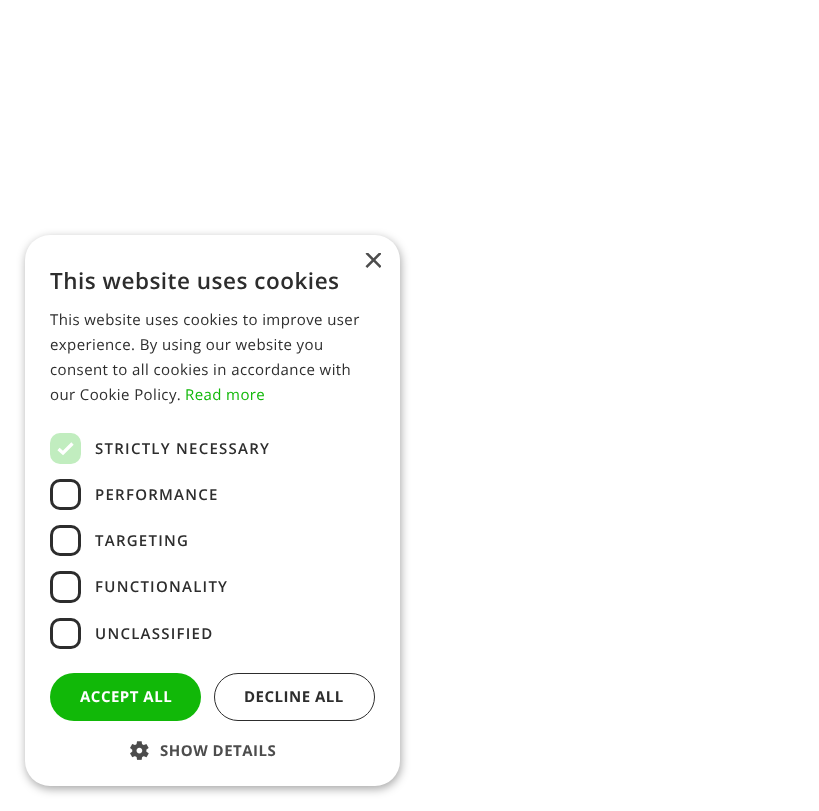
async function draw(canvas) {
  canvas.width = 819
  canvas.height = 811
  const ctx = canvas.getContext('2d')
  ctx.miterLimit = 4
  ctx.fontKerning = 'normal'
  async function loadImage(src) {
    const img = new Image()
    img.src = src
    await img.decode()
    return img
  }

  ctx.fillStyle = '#fff'
  ctx.fillRect(0, 0, 819, 811)
  ctx.fillStyle = '#00000059'
  ctx.filter = 'blur(5px)'
  ctx.beginPath()
  ctx.roundRect(26, 238, 375, 551, 25)
  ctx.fill()
  ctx.filter = 'none'
  ctx.fillStyle = '#fff'
  ctx.beginPath()
  ctx.roundRect(25, 235, 375, 551, 25)
  ctx.fill()
  ctx.save()
  ctx.beginPath()
  ctx.rect(363, 253, 18, 18)
  ctx.clip()
  ctx.font = '36px Liberation Sans'
  ctx.fillStyle = '#4d4d4d'
  ctx.fillText('×', 363, 272)
  ctx.restore()
  ctx.letterSpacing = '0.5px'
  ctx.font = '600 22.5px Open Sans'
  ctx.fillStyle = '#2d2d2d'
  ctx.fillText('This website uses cookies', 50, 289)
  ctx.letterSpacing = '0.4px'
  ctx.font = '15px Open Sans'
  ctx.fillText('This website uses cookies to improve user', 50, 325)
  ctx.fillText('experience. By using our website you', 50, 350)
  ctx.fillText('consent to all cookies in accordance with', 50, 375)
  ctx.fillText('our Cookie Policy.', 50, 400)
  ctx.fillStyle = '#11b808'
  ctx.fillText('Read more', 185, 400)
  ctx.fillStyle = '#c1edbf'
  ctx.beginPath()
  ctx.roundRect(50, 433, 31, 31, 10)
  ctx.fill()
  ctx.beginPath()
  ctx.moveTo(58.5, 449)
  ctx.lineTo(63, 453)
  ctx.lineTo(72.5, 443.5)
  ctx.strokeStyle = '#fff'
  ctx.lineWidth = 3.3
  ctx.stroke()
  ctx.letterSpacing = '1.25px'
  ctx.font = '600 15px Open Sans'
  ctx.fillStyle = '#2d2d2d'
  ctx.fillText('STRICTLY NECESSARY', 95, 454)
  ctx.beginPath()
  ctx.roundRect(51.5, 480.5, 28, 28, 8.5)
  ctx.strokeStyle = '#2d2d2d'
  ctx.lineWidth = 3
  ctx.stroke()
  ctx.fillText('PERFORMANCE', 95, 500)
  ctx.beginPath()
  ctx.roundRect(51.5, 526.5, 28, 28, 8.5)
  ctx.stroke()
  ctx.fillText('TARGETING', 95, 546)
  ctx.beginPath()
  ctx.roundRect(51.5, 572.5, 28, 29, 8.5)
  ctx.stroke()
  ctx.fillText('FUNCTIONALITY', 95, 592)
  ctx.beginPath()
  ctx.roundRect(51.5, 619.5, 28, 28, 8.5)
  ctx.stroke()
  ctx.fillText('UNCLASSIFIED', 95, 639)
  ctx.fillStyle = '#11b808'
  ctx.beginPath()
  ctx.roundRect(50, 673, 151, 48, 24)
  ctx.fill()
  ctx.letterSpacing = '0.5px'
  ctx.font = 'bold 15px Open Sans'
  ctx.fillStyle = '#fff'
  ctx.fillText('ACCEPT ALL', 80, 702)
  ctx.beginPath()
  ctx.roundRect(214.5, 673.5, 160, 47, 23.5)
  ctx.lineWidth = 1
  ctx.stroke()
  ctx.fillStyle = '#2d2d2d'
  ctx.fillText('DECLINE ALL', 244, 702)
  ctx.drawImage(await loadImage('image0.png'), 130, 741, 19, 19)
  ctx.fillStyle = '#4d4d4d'
  ctx.fillText('SHOW DETAILS', 160, 756)
}

draw(document.querySelector('canvas'))
